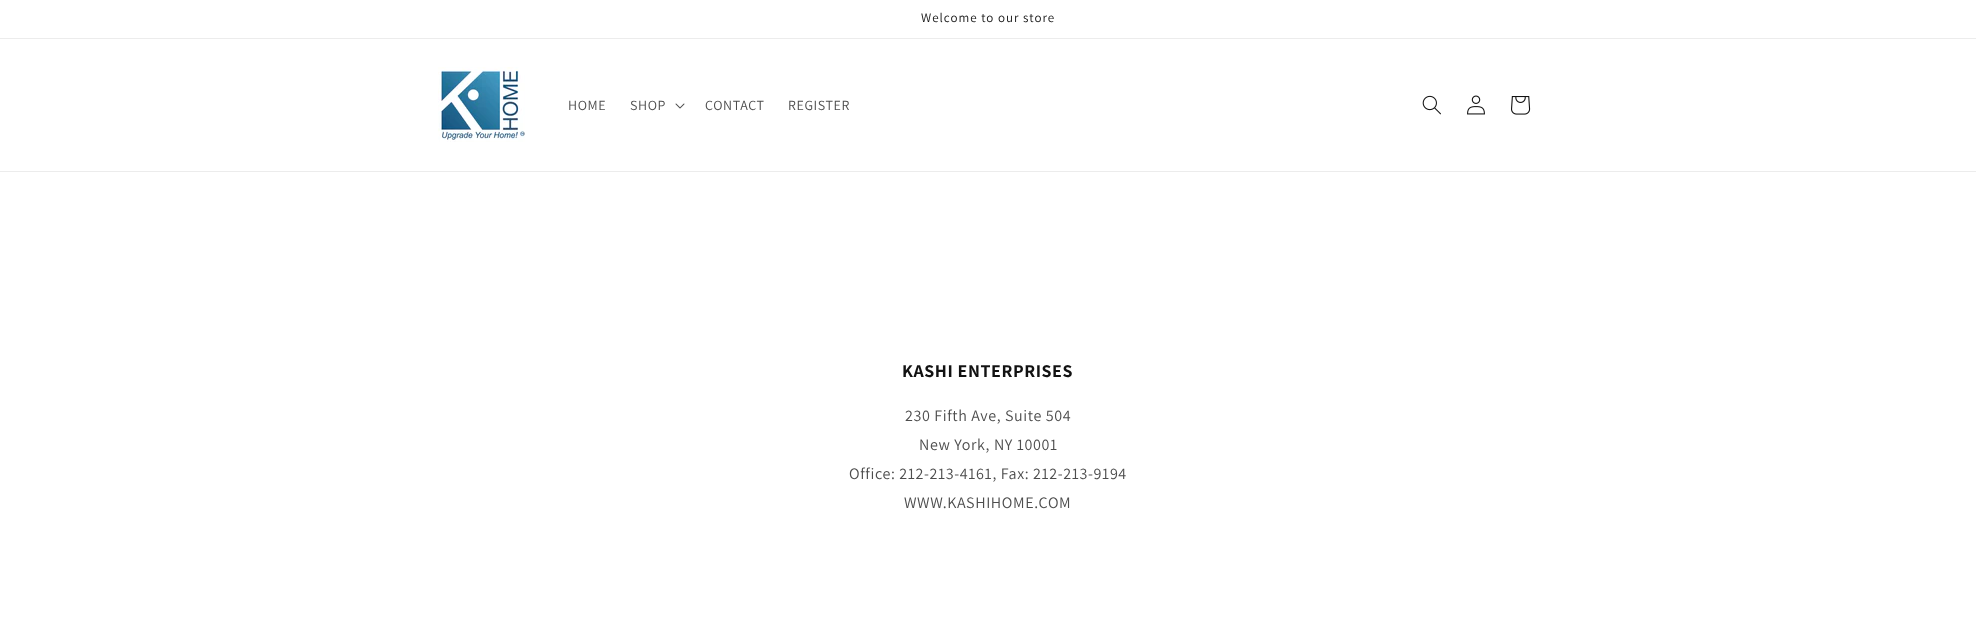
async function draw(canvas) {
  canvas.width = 1976
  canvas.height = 634
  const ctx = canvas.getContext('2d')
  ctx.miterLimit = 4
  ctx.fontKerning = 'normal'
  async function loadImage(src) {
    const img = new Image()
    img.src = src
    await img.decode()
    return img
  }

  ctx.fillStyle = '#fff'
  ctx.fillRect(0, 0, 1976, 634)
  ctx.fillStyle = '#ececec'
  ctx.fillRect(0, 38, 1976, 1)
  ctx.letterSpacing = '1px'
  ctx.font = '13px Assistant'
  ctx.fillStyle = '#121212'
  ctx.fillText('Welcome to our store', 921, 22)
  ctx.fillStyle = '#ececec'
  ctx.fillRect(0, 171, 1976, 1)
  ctx.drawImage(await loadImage('image0.png'), 438, 67, 87, 75)
  ctx.letterSpacing = '0.6px'
  ctx.font = '14px Assistant'
  ctx.fillStyle = '#4d4d4d'
  ctx.fillText('HOME', 568, 110)
  ctx.fillText('SHOP', 630, 110)
  ctx.drawImage(await loadImage('image1.png'), 675, 103, 10, 6)
  ctx.fillText('CONTACT', 705, 110)
  ctx.fillText('REGISTER', 788, 110)
  ctx.drawImage(await loadImage('image2.png'), 1422, 95, 19, 20)
  ctx.drawImage(await loadImage('image3.png'), 1467, 95, 18, 20)
  ctx.drawImage(await loadImage('image4.png'), 1511, 96, 20, 19)
  ctx.font = 'bold 18px Assistant'
  ctx.fillStyle = '#121212'
  ctx.fillText('KASHI ENTERPRISES', 902, 377)
  ctx.font = '16px Assistant'
  ctx.fillStyle = '#4d4d4d'
  ctx.fillText('230 Fifth Ave, Suite 504', 905, 421)
  ctx.fillText('New York, NY 10001', 919, 450)
  ctx.fillText('Office: 212-213-4161, Fax: 212-213-9194', 849, 479)
  ctx.fillText('WWW.KASHIHOME.COM', 904, 508)
}

draw(document.querySelector('canvas'))
